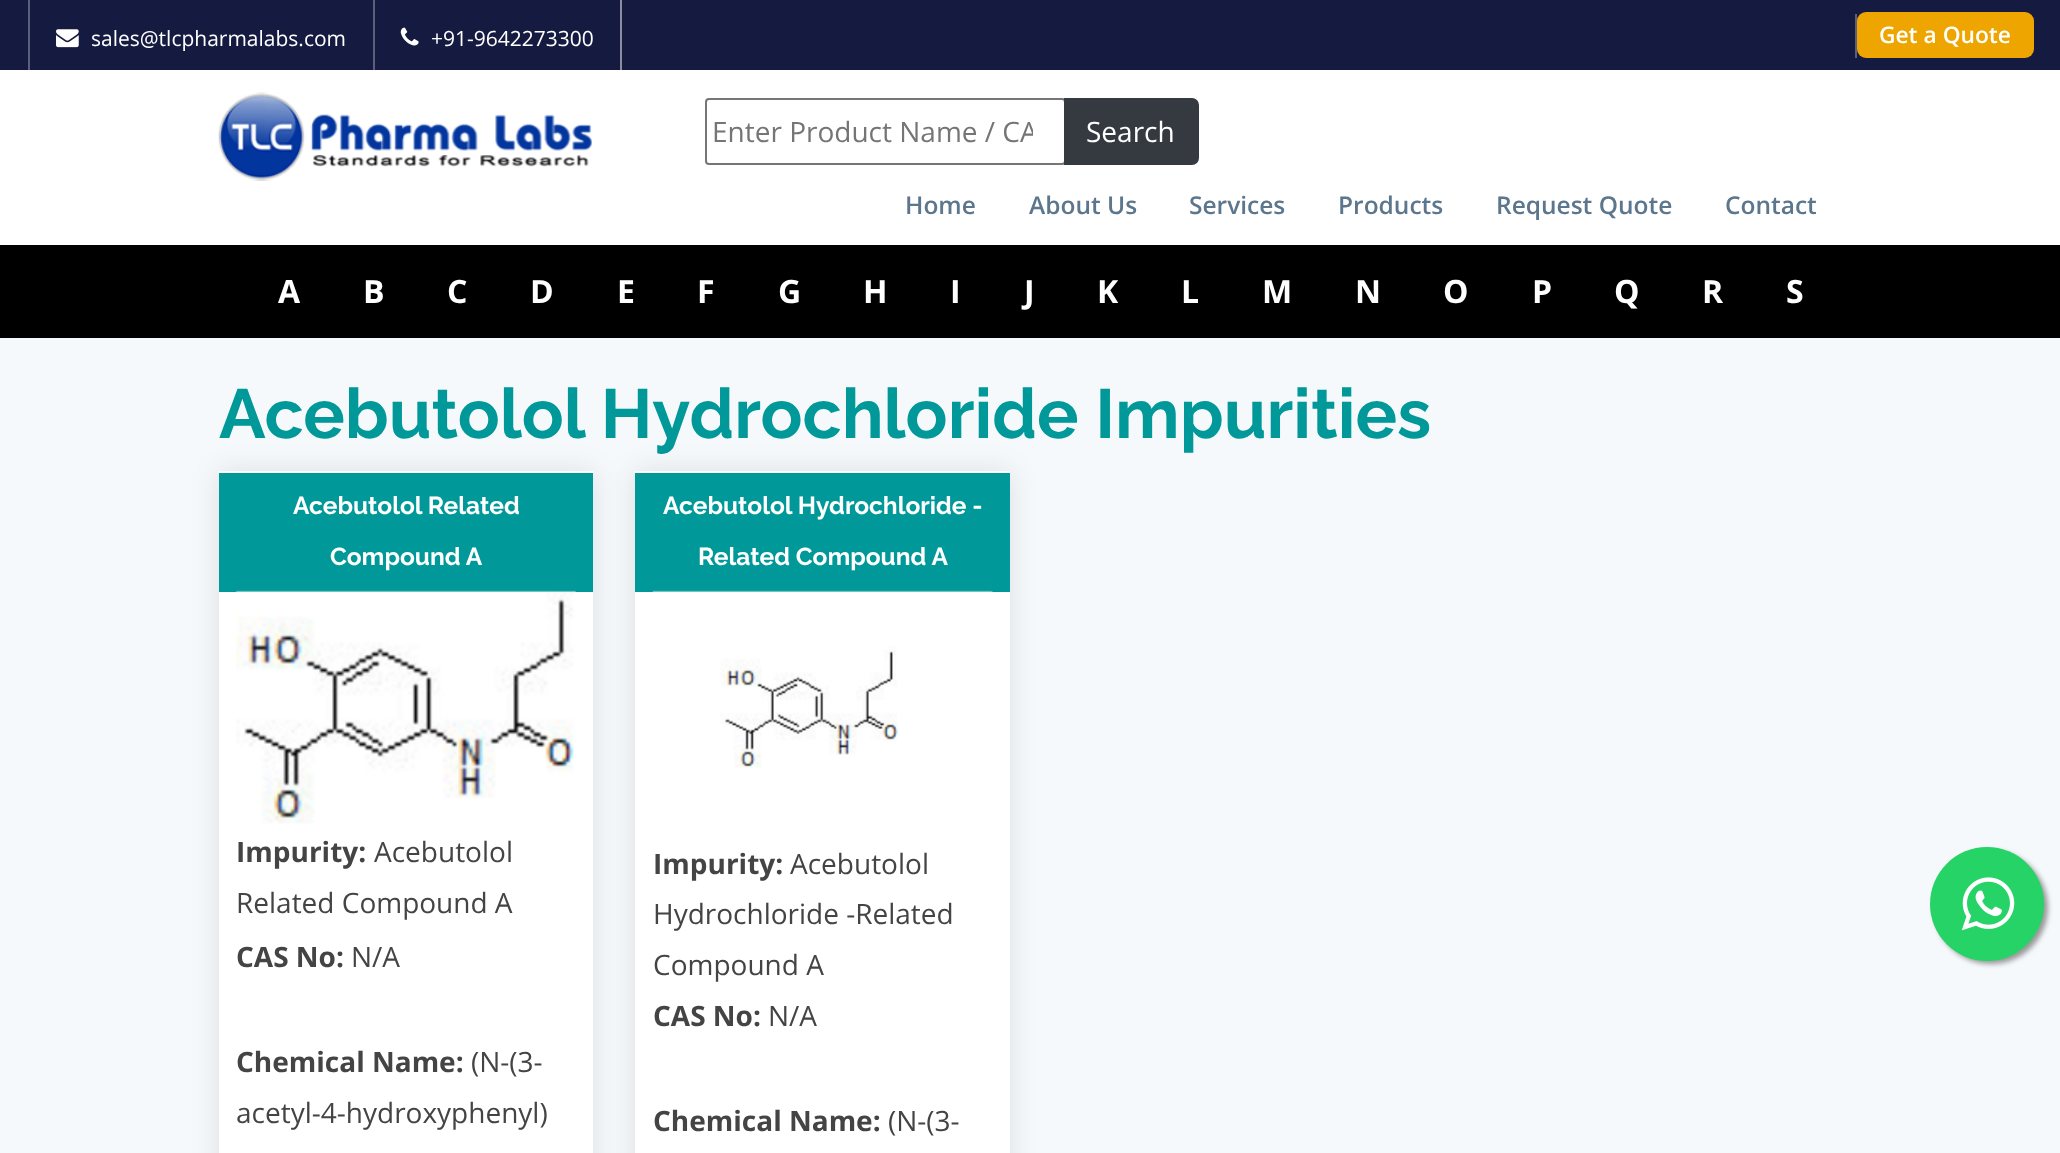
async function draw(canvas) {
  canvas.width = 2060
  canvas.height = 1153
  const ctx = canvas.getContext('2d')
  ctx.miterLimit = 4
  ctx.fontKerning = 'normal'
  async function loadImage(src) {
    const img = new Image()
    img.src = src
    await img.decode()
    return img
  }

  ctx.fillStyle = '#000'
  ctx.fillRect(0, 0, 2060, 1153)
  ctx.fillStyle = '#fff'
  ctx.fillRect(0, 70, 2060, 175)
  ctx.fillStyle = '#151a40'
  ctx.fillRect(0, 0, 2060, 70)
  ctx.fillStyle = '#8a8da0'
  ctx.fillRect(620, 0, 2, 70)
  ctx.fillStyle = '#5b5f79'
  ctx.fillRect(28, 0, 2, 70)
  ctx.drawImage(await loadImage('image0.png'), 56, 29, 23, 19)
  ctx.font = '21px Open Sans'
  ctx.fillStyle = '#fff'
  ctx.fillText('sales@tlcpharmalabs.com', 91, 46)
  ctx.fillStyle = '#5b5f79'
  ctx.fillRect(373, 0, 2, 70)
  ctx.drawImage(await loadImage('image1.png'), 400, 27, 19, 19)
  ctx.fillStyle = '#fff'
  ctx.fillText('+91-9642273300', 431, 46)
  ctx.fillStyle = '#5b5f79'
  ctx.fillRect(1855, 14, 2, 44)
  ctx.fillStyle = '#eea500'
  ctx.beginPath()
  ctx.roundRect(1857, 12, 177, 46, 9)
  ctx.fill()
  ctx.font = '600 22.75px Open Sans'
  ctx.fillStyle = '#fff'
  ctx.fillText('Get a Quote', 1879, 43)
  ctx.drawImage(await loadImage('image2.png'), 218, 92, 374, 89)
  ctx.beginPath()
  ctx.roundRect(706, 99, 359, 65, 3)
  ctx.strokeStyle = '#767676'
  ctx.lineWidth = 2
  ctx.stroke()
  ctx.save()
  ctx.beginPath()
  ctx.rect(712, 112, 321, 39)
  ctx.clip()
  ctx.font = '28px Open Sans'
  ctx.fillStyle = '#757575'
  ctx.fillText('Enter Product Name / CA', 712, 142)
  ctx.restore()
  ctx.fillStyle = '#343a40'
  ctx.beginPath()
  ctx.roundRect(1065, 99, 133, 65, [0, 6, 6, 0])
  ctx.fill()
  ctx.strokeStyle = '#343a40'
  ctx.stroke()
  ctx.font = '28px Open Sans'
  ctx.fillStyle = '#fff'
  ctx.fillText('Search', 1086, 142)
  ctx.font = '600 24.5px Open Sans'
  ctx.fillStyle = '#5c768d'
  ctx.fillText('Home', 905, 214)
  ctx.fillText('About Us', 1029, 214)
  ctx.fillText('Services', 1189, 214)
  ctx.fillText('Products', 1338, 214)
  ctx.fillText('Request Quote', 1496, 214)
  ctx.fillText('Contact', 1725, 214)
  ctx.font = 'bold 32px Open Sans'
  ctx.fillStyle = '#fff'
  ctx.fillText('A', 278, 303)
  ctx.fillText('B', 363, 303)
  ctx.fillText('C', 447, 303)
  ctx.fillText('D', 530, 303)
  ctx.fillText('E', 617, 303)
  ctx.fillText('F', 697, 303)
  ctx.fillText('G', 778, 303)
  ctx.fillText('H', 863, 303)
  ctx.fillText('I', 950, 303)
  ctx.fillText('J', 1024, 303)
  ctx.fillText('K', 1097, 303)
  ctx.fillText('L', 1181, 303)
  ctx.fillText('M', 1262, 303)
  ctx.fillText('N', 1355, 303)
  ctx.fillText('O', 1443, 303)
  ctx.fillText('P', 1532, 303)
  ctx.fillText('Q', 1614, 303)
  ctx.fillText('R', 1702, 303)
  ctx.fillText('S', 1786, 303)
  ctx.fillStyle = '#f5f9fc'
  ctx.fillRect(0, 338, 2060, 815)
  ctx.font = 'bold 69.4px Raleway'
  ctx.fillStyle = '#009899'
  ctx.fillText('Acebutolol Hydrochloride Impurities', 219, 438)
  ctx.fillStyle = '#0000001a'
  ctx.filter = 'blur(14px)'
  ctx.beginPath()
  ctx.rect(219, 471, 374, 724)
  ctx.fill()
  ctx.filter = 'none'
  ctx.fillStyle = '#fff'
  ctx.fillRect(219, 471, 374, 682)
  ctx.fillStyle = '#009899'
  ctx.fillRect(219, 473, 374, 119)
  ctx.font = 'bold 24.5px Raleway'
  ctx.fillStyle = '#fff'
  ctx.fillText('Acebutolol Related', 293, 514)
  ctx.fillText('Compound A', 330, 565)
  ctx.drawImage(await loadImage('image3.png'), 236, 590, 341, 234)
  ctx.font = 'bold 28px Open Sans'
  ctx.fillStyle = '#444'
  ctx.fillText('Impurity:', 236, 862)
  ctx.font = '28px Open Sans'
  ctx.fillText('Acebutolol', 374, 862)
  ctx.fillText('Related Compound A', 236, 913)
  ctx.font = 'bold 28px Open Sans'
  ctx.fillText('CAS No:', 236, 967)
  ctx.font = '28px Open Sans'
  ctx.fillText('N/A', 351, 967)
  ctx.font = 'bold 28px Open Sans'
  ctx.fillText('Chemical Name:', 236, 1072)
  ctx.font = '28px Open Sans'
  ctx.fillText('(N-(3-', 471, 1072)
  ctx.fillText('acetyl-4-hydroxyphenyl)', 236, 1123)
  ctx.fillStyle = '#0000001a'
  ctx.filter = 'blur(14px)'
  ctx.beginPath()
  ctx.rect(635, 471, 375, 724)
  ctx.fill()
  ctx.filter = 'none'
  ctx.fillStyle = '#fff'
  ctx.fillRect(635, 471, 375, 682)
  ctx.fillStyle = '#009899'
  ctx.fillRect(635, 473, 375, 119)
  ctx.font = 'bold 24.5px Raleway'
  ctx.fillStyle = '#fff'
  ctx.fillText('Acebutolol Hydrochloride -', 663, 514)
  ctx.fillText('Related Compound A', 698, 565)
  ctx.drawImage(await loadImage('image4.png'), 652, 590, 341, 178)
  ctx.font = 'bold 28px Open Sans'
  ctx.fillStyle = '#444'
  ctx.fillText('Impurity:', 653, 874)
  ctx.font = '28px Open Sans'
  ctx.fillText('Acebutolol', 790, 874)
  ctx.fillText('Hydrochloride -Related', 653, 924)
  ctx.fillText('Compound A', 653, 975)
  ctx.font = 'bold 28px Open Sans'
  ctx.fillText('CAS No:', 653, 1026)
  ctx.font = '28px Open Sans'
  ctx.fillText('N/A', 768, 1026)
  ctx.font = 'bold 28px Open Sans'
  ctx.fillText('Chemical Name:', 653, 1131)
  ctx.font = '28px Open Sans'
  ctx.fillText('(N-(3-', 888, 1131)
  ctx.fillStyle = '#999'
  ctx.filter = 'blur(2.5px)'
  ctx.beginPath()
  ctx.roundRect(1934, 851, 114, 113, 56.5)
  ctx.fill()
  ctx.filter = 'none'
  ctx.fillStyle = '#25d366'
  ctx.beginPath()
  ctx.arc(1987, 904, 57, 0, 2 * Math.PI)
  ctx.fill()
  ctx.drawImage(await loadImage('image5.png'), 1961, 877, 54, 54)
}

draw(document.querySelector('canvas'))
